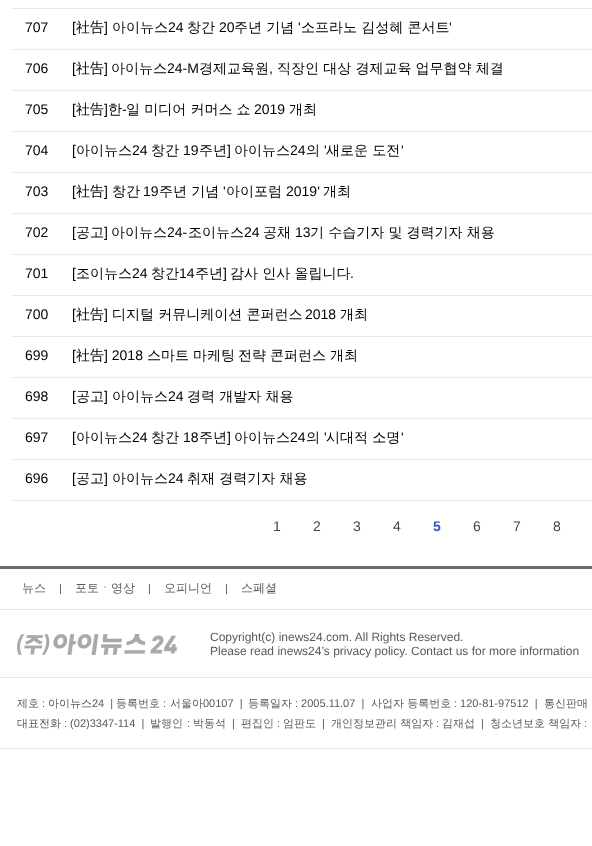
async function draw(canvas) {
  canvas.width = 592
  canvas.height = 846
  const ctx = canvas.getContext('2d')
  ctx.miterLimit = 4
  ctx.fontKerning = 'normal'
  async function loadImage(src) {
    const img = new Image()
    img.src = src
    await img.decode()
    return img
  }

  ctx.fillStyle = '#fff'
  ctx.fillRect(0, 0, 592, 846)
  ctx.fillStyle = '#eaeaea'
  ctx.fillRect(12, 8, 580, 1)
  ctx.fillRect(12, 49, 580, 1)
  ctx.font = '14px Liberation Sans'
  ctx.fillStyle = '#000'
  ctx.fillText('707', 25, 32)
  ctx.fillText('[', 72, 32)
  ctx.font = '500 14px WenQuanYi Zen Hei'
  ctx.fillText('社告', 76, 32)
  ctx.font = '14px Liberation Sans'
  ctx.fillText(']', 104, 32)
  ctx.font = '500 14px WenQuanYi Zen Hei'
  ctx.fillText('아이뉴스', 112, 32)
  ctx.font = '14px Liberation Sans'
  ctx.fillText('24', 168, 32)
  ctx.font = '500 14px WenQuanYi Zen Hei'
  ctx.fillText('창간', 187, 32)
  ctx.font = '14px Liberation Sans'
  ctx.fillText('20', 219, 32)
  ctx.font = '500 14px WenQuanYi Zen Hei'
  ctx.fillText('주년 기념', 234, 32)
  ctx.font = '14px Liberation Sans'
  ctx.fillText('\'', 298, 32)
  ctx.font = '500 14px WenQuanYi Zen Hei'
  ctx.fillText('소프라노 김성혜 콘서트', 301, 32)
  ctx.font = '14px Liberation Sans'
  ctx.fillText('\'', 449, 32)
  ctx.fillStyle = '#eaeaea'
  ctx.fillRect(12, 90, 580, 1)
  ctx.fillStyle = '#000'
  ctx.fillText('706', 25, 73)
  ctx.fillText('[', 72, 73)
  ctx.font = '500 14px WenQuanYi Zen Hei'
  ctx.fillText('社告', 76, 73)
  ctx.font = '14px Liberation Sans'
  ctx.fillText(']', 104, 73)
  ctx.font = '500 14px WenQuanYi Zen Hei'
  ctx.fillText('아이뉴스', 111, 73)
  ctx.font = '14px Liberation Sans'
  ctx.fillText('24-M', 167, 73)
  ctx.font = '500 14px WenQuanYi Zen Hei'
  ctx.fillText('경제교육원', 199, 73)
  ctx.font = '14px Liberation Sans'
  ctx.fillText(',', 269, 73)
  ctx.font = '500 14px WenQuanYi Zen Hei'
  ctx.fillText('직장인 대상 경제교육 업무협약 체결', 277, 73)
  ctx.fillStyle = '#eaeaea'
  ctx.fillRect(12, 131, 580, 1)
  ctx.font = '14px Liberation Sans'
  ctx.fillStyle = '#000'
  ctx.fillText('705', 25, 114)
  ctx.fillText('[', 72, 114)
  ctx.font = '500 14px WenQuanYi Zen Hei'
  ctx.fillText('社告', 76, 114)
  ctx.font = '14px Liberation Sans'
  ctx.fillText(']', 104, 114)
  ctx.font = '500 14px WenQuanYi Zen Hei'
  ctx.fillText('한', 108, 114)
  ctx.font = '14px Liberation Sans'
  ctx.fillText('-', 122, 114)
  ctx.font = '500 14px WenQuanYi Zen Hei'
  ctx.fillText('일 미디어 커머스 쇼', 126, 114)
  ctx.font = '14px Liberation Sans'
  ctx.fillText('2019', 254, 114)
  ctx.font = '500 14px WenQuanYi Zen Hei'
  ctx.fillText('개최', 289, 114)
  ctx.fillStyle = '#eaeaea'
  ctx.fillRect(12, 172, 580, 1)
  ctx.font = '14px Liberation Sans'
  ctx.fillStyle = '#000'
  ctx.fillText('704', 25, 155)
  ctx.fillText('[', 72, 155)
  ctx.font = '500 14px WenQuanYi Zen Hei'
  ctx.fillText('아이뉴스', 76, 155)
  ctx.font = '14px Liberation Sans'
  ctx.fillText('24', 132, 155)
  ctx.font = '500 14px WenQuanYi Zen Hei'
  ctx.fillText('창간', 151, 155)
  ctx.font = '14px Liberation Sans'
  ctx.fillText('19', 183, 155)
  ctx.font = '500 14px WenQuanYi Zen Hei'
  ctx.fillText('주년', 199, 155)
  ctx.font = '14px Liberation Sans'
  ctx.fillText(']', 227, 155)
  ctx.font = '500 14px WenQuanYi Zen Hei'
  ctx.fillText('아이뉴스', 234, 155)
  ctx.font = '14px Liberation Sans'
  ctx.fillText('24', 290, 155)
  ctx.font = '500 14px WenQuanYi Zen Hei'
  ctx.fillText('의', 306, 155)
  ctx.font = '14px Liberation Sans'
  ctx.fillText('\'', 324, 155)
  ctx.font = '500 14px WenQuanYi Zen Hei'
  ctx.fillText('새로운 도전', 326, 155)
  ctx.font = '14px Liberation Sans'
  ctx.fillText('\'', 401, 155)
  ctx.fillStyle = '#eaeaea'
  ctx.fillRect(12, 213, 580, 1)
  ctx.fillStyle = '#000'
  ctx.fillText('703', 25, 196)
  ctx.fillText('[', 72, 196)
  ctx.font = '500 14px WenQuanYi Zen Hei'
  ctx.fillText('社告', 76, 196)
  ctx.font = '14px Liberation Sans'
  ctx.fillText(']', 104, 196)
  ctx.font = '500 14px WenQuanYi Zen Hei'
  ctx.fillText('창간', 112, 196)
  ctx.font = '14px Liberation Sans'
  ctx.fillText('19', 143, 196)
  ctx.font = '500 14px WenQuanYi Zen Hei'
  ctx.fillText('주년 기념', 159, 196)
  ctx.font = '14px Liberation Sans'
  ctx.fillText('\'', 223, 196)
  ctx.font = '500 14px WenQuanYi Zen Hei'
  ctx.fillText('아이포럼', 226, 196)
  ctx.font = '14px Liberation Sans'
  ctx.fillText('2019\'', 286, 196)
  ctx.font = '500 14px WenQuanYi Zen Hei'
  ctx.fillText('개최', 323, 196)
  ctx.fillStyle = '#eaeaea'
  ctx.fillRect(12, 254, 580, 1)
  ctx.font = '14px Liberation Sans'
  ctx.fillStyle = '#000'
  ctx.fillText('702', 25, 237)
  ctx.fillText('[', 72, 237)
  ctx.font = '500 14px WenQuanYi Zen Hei'
  ctx.fillText('공고', 76, 237)
  ctx.font = '14px Liberation Sans'
  ctx.fillText(']', 104, 237)
  ctx.font = '500 14px WenQuanYi Zen Hei'
  ctx.fillText('아이뉴스', 111, 237)
  ctx.font = '14px Liberation Sans'
  ctx.fillText('24-', 167, 237)
  ctx.font = '500 14px WenQuanYi Zen Hei'
  ctx.fillText('조이뉴스', 188, 237)
  ctx.font = '14px Liberation Sans'
  ctx.fillText('24', 244, 237)
  ctx.font = '500 14px WenQuanYi Zen Hei'
  ctx.fillText('공채', 263, 237)
  ctx.font = '14px Liberation Sans'
  ctx.fillText('13', 295, 237)
  ctx.font = '500 14px WenQuanYi Zen Hei'
  ctx.fillText('기 수습기자 및 경력기자 채용', 310, 237)
  ctx.fillStyle = '#eaeaea'
  ctx.fillRect(12, 295, 580, 1)
  ctx.font = '14px Liberation Sans'
  ctx.fillStyle = '#000'
  ctx.fillText('701', 25, 278)
  ctx.fillText('[', 72, 278)
  ctx.font = '500 14px WenQuanYi Zen Hei'
  ctx.fillText('조이뉴스', 76, 278)
  ctx.font = '14px Liberation Sans'
  ctx.fillText('24', 132, 278)
  ctx.font = '500 14px WenQuanYi Zen Hei'
  ctx.fillText('창간', 151, 278)
  ctx.font = '14px Liberation Sans'
  ctx.fillText('14', 179, 278)
  ctx.font = '500 14px WenQuanYi Zen Hei'
  ctx.fillText('주년', 195, 278)
  ctx.font = '14px Liberation Sans'
  ctx.fillText(']', 223, 278)
  ctx.font = '500 14px WenQuanYi Zen Hei'
  ctx.fillText('감사 인사 올립니다', 230, 278)
  ctx.font = '14px Liberation Sans'
  ctx.fillText('.', 350, 278)
  ctx.fillStyle = '#eaeaea'
  ctx.fillRect(12, 336, 580, 1)
  ctx.fillStyle = '#000'
  ctx.fillText('700', 25, 319)
  ctx.fillText('[', 72, 319)
  ctx.font = '500 14px WenQuanYi Zen Hei'
  ctx.fillText('社告', 76, 319)
  ctx.font = '14px Liberation Sans'
  ctx.fillText(']', 104, 319)
  ctx.font = '500 14px WenQuanYi Zen Hei'
  ctx.fillText('디지털 커뮤니케이션 콘퍼런스', 112, 319)
  ctx.font = '14px Liberation Sans'
  ctx.fillText('2018', 305, 319)
  ctx.font = '500 14px WenQuanYi Zen Hei'
  ctx.fillText('개최', 340, 319)
  ctx.fillStyle = '#eaeaea'
  ctx.fillRect(12, 377, 580, 1)
  ctx.font = '14px Liberation Sans'
  ctx.fillStyle = '#000'
  ctx.fillText('699', 25, 360)
  ctx.fillText('[', 72, 360)
  ctx.font = '500 14px WenQuanYi Zen Hei'
  ctx.fillText('社告', 76, 360)
  ctx.font = '14px Liberation Sans'
  ctx.fillText('] 2018', 104, 360)
  ctx.font = '500 14px WenQuanYi Zen Hei'
  ctx.fillText('스마트', 147, 360)
  ctx.fillText('마케팅', 193, 360)
  ctx.fillText('전략', 238, 360)
  ctx.fillText('콘퍼런스', 270, 360)
  ctx.fillText('개최', 330, 360)
  ctx.fillStyle = '#eaeaea'
  ctx.fillRect(12, 418, 580, 1)
  ctx.font = '14px Liberation Sans'
  ctx.fillStyle = '#000'
  ctx.fillText('698', 25, 401)
  ctx.fillText('[', 72, 401)
  ctx.font = '500 14px WenQuanYi Zen Hei'
  ctx.fillText('공고', 76, 401)
  ctx.font = '14px Liberation Sans'
  ctx.fillText(']', 104, 401)
  ctx.font = '500 14px WenQuanYi Zen Hei'
  ctx.fillText('아이뉴스', 112, 401)
  ctx.font = '14px Liberation Sans'
  ctx.fillText('24', 168, 401)
  ctx.font = '500 14px WenQuanYi Zen Hei'
  ctx.fillText('경력 개발자 채용', 187, 401)
  ctx.fillStyle = '#eaeaea'
  ctx.fillRect(12, 459, 580, 1)
  ctx.font = '14px Liberation Sans'
  ctx.fillStyle = '#000'
  ctx.fillText('697', 25, 442)
  ctx.fillText('[', 72, 442)
  ctx.font = '500 14px WenQuanYi Zen Hei'
  ctx.fillText('아이뉴스', 76, 442)
  ctx.font = '14px Liberation Sans'
  ctx.fillText('24', 132, 442)
  ctx.font = '500 14px WenQuanYi Zen Hei'
  ctx.fillText('창간', 151, 442)
  ctx.font = '14px Liberation Sans'
  ctx.fillText('18', 183, 442)
  ctx.font = '500 14px WenQuanYi Zen Hei'
  ctx.fillText('주년', 199, 442)
  ctx.font = '14px Liberation Sans'
  ctx.fillText(']', 227, 442)
  ctx.font = '500 14px WenQuanYi Zen Hei'
  ctx.fillText('아이뉴스', 234, 442)
  ctx.font = '14px Liberation Sans'
  ctx.fillText('24', 290, 442)
  ctx.font = '500 14px WenQuanYi Zen Hei'
  ctx.fillText('의', 306, 442)
  ctx.font = '14px Liberation Sans'
  ctx.fillText('\'', 324, 442)
  ctx.font = '500 14px WenQuanYi Zen Hei'
  ctx.fillText('시대적 소명', 326, 442)
  ctx.font = '14px Liberation Sans'
  ctx.fillText('\'', 401, 442)
  ctx.fillStyle = '#eaeaea'
  ctx.fillRect(12, 500, 580, 1)
  ctx.fillStyle = '#000'
  ctx.fillText('696', 25, 483)
  ctx.fillText('[', 72, 483)
  ctx.font = '500 14px WenQuanYi Zen Hei'
  ctx.fillText('공고', 76, 483)
  ctx.font = '14px Liberation Sans'
  ctx.fillText(']', 104, 483)
  ctx.font = '500 14px WenQuanYi Zen Hei'
  ctx.fillText('아이뉴스', 112, 483)
  ctx.font = '14px Liberation Sans'
  ctx.fillText('24', 168, 483)
  ctx.font = '500 14px WenQuanYi Zen Hei'
  ctx.fillText('취재 경력기자 채용', 187, 483)
  ctx.font = '14px Liberation Sans'
  ctx.fillStyle = '#444'
  ctx.fillText('1', 273, 531)
  ctx.fillText('2', 313, 531)
  ctx.fillText('3', 353, 531)
  ctx.fillText('4', 393, 531)
  ctx.font = 'bold 14px Liberation Sans'
  ctx.fillStyle = '#2d5bbb'
  ctx.fillText('5', 433, 531)
  ctx.font = '14px Liberation Sans'
  ctx.fillStyle = '#444'
  ctx.fillText('6', 473, 531)
  ctx.fillText('7', 513, 531)
  ctx.fillText('8', 553, 531)
  ctx.fillStyle = '#6a6a6a'
  ctx.fillRect(0, 566, 592, 3)
  ctx.font = '500 12px WenQuanYi Zen Hei'
  ctx.fillStyle = '#595959'
  ctx.fillText('뉴스', 22, 592)
  ctx.font = '11px Liberation Sans'
  ctx.fillText('|', 59, 592)
  ctx.font = '500 12px WenQuanYi Zen Hei'
  ctx.fillText('포토ㆍ영상', 75, 592)
  ctx.font = '11px Liberation Sans'
  ctx.fillText('|', 148, 592)
  ctx.font = '500 12px WenQuanYi Zen Hei'
  ctx.fillText('오피니언', 164, 592)
  ctx.font = '11px Liberation Sans'
  ctx.fillText('|', 225, 592)
  ctx.font = '500 12px WenQuanYi Zen Hei'
  ctx.fillText('스페셜', 241, 592)
  ctx.fillStyle = '#e6e6e6'
  ctx.fillRect(0, 609, 592, 1)
  ctx.drawImage(await loadImage('image0.png'), 17, 634, 160, 21)
  ctx.font = '12px Liberation Sans'
  ctx.fillStyle = '#595959'
  ctx.fillText('Copyright(c) inews24.com. All Rights Reserved.', 210, 641)
  ctx.fillText('Please read inews24’s privacy policy. Contact us for more information', 210, 655)
  ctx.fillStyle = '#e6e6e6'
  ctx.fillRect(0, 677, 592, 1)
  ctx.font = '500 11px WenQuanYi Zen Hei'
  ctx.fillStyle = '#595959'
  ctx.fillText('제호', 17, 707)
  ctx.font = '11px Liberation Sans'
  ctx.fillText(':', 42, 707)
  ctx.font = '500 11px WenQuanYi Zen Hei'
  ctx.fillText('아이뉴스', 48, 707)
  ctx.font = '11px Liberation Sans'
  ctx.fillText('24  |', 92, 707)
  ctx.font = '500 11px WenQuanYi Zen Hei'
  ctx.fillText('등록번호', 116, 707)
  ctx.font = '11px Liberation Sans'
  ctx.fillText(':', 163, 707)
  ctx.font = '500 11px WenQuanYi Zen Hei'
  ctx.fillText('서울아', 170, 707)
  ctx.font = '11px Liberation Sans'
  ctx.fillText('00107  |', 203, 707)
  ctx.font = '500 11px WenQuanYi Zen Hei'
  ctx.fillText('등록일자', 248, 707)
  ctx.font = '11px Liberation Sans'
  ctx.fillText(': 2005.11.07  |', 295, 707)
  ctx.font = '500 11px WenQuanYi Zen Hei'
  ctx.fillText('사업자 등록번호', 371, 707)
  ctx.font = '11px Liberation Sans'
  ctx.fillText(': 120-81-97512  |', 454, 707)
  ctx.font = '500 11px WenQuanYi Zen Hei'
  ctx.fillText('통신판매', 544, 707)
  ctx.fillText('대표전화', 17, 727)
  ctx.font = '11px Liberation Sans'
  ctx.fillText(': (02)3347-114  |', 64, 727)
  ctx.font = '500 11px WenQuanYi Zen Hei'
  ctx.fillText('발행인', 150, 727)
  ctx.font = '11px Liberation Sans'
  ctx.fillText(':', 187, 727)
  ctx.font = '500 11px WenQuanYi Zen Hei'
  ctx.fillText('박동석', 193, 727)
  ctx.font = '11px Liberation Sans'
  ctx.fillText('|', 232, 727)
  ctx.font = '500 11px WenQuanYi Zen Hei'
  ctx.fillText('편집인', 241, 727)
  ctx.font = '11px Liberation Sans'
  ctx.fillText(':', 277, 727)
  ctx.font = '500 11px WenQuanYi Zen Hei'
  ctx.fillText('엄판도', 283, 727)
  ctx.font = '11px Liberation Sans'
  ctx.fillText('|', 322, 727)
  ctx.font = '500 11px WenQuanYi Zen Hei'
  ctx.fillText('개인정보관리 책임자', 331, 727)
  ctx.font = '11px Liberation Sans'
  ctx.fillText(':', 436, 727)
  ctx.font = '500 11px WenQuanYi Zen Hei'
  ctx.fillText('김재섭', 442, 727)
  ctx.font = '11px Liberation Sans'
  ctx.fillText('|', 481, 727)
  ctx.font = '500 11px WenQuanYi Zen Hei'
  ctx.fillText('청소년보호 책임자', 490, 727)
  ctx.font = '11px Liberation Sans'
  ctx.fillText(':', 584, 727)
  ctx.fillStyle = '#e6e6e6'
  ctx.fillRect(0, 748, 592, 1)
}

draw(document.querySelector('canvas'))
